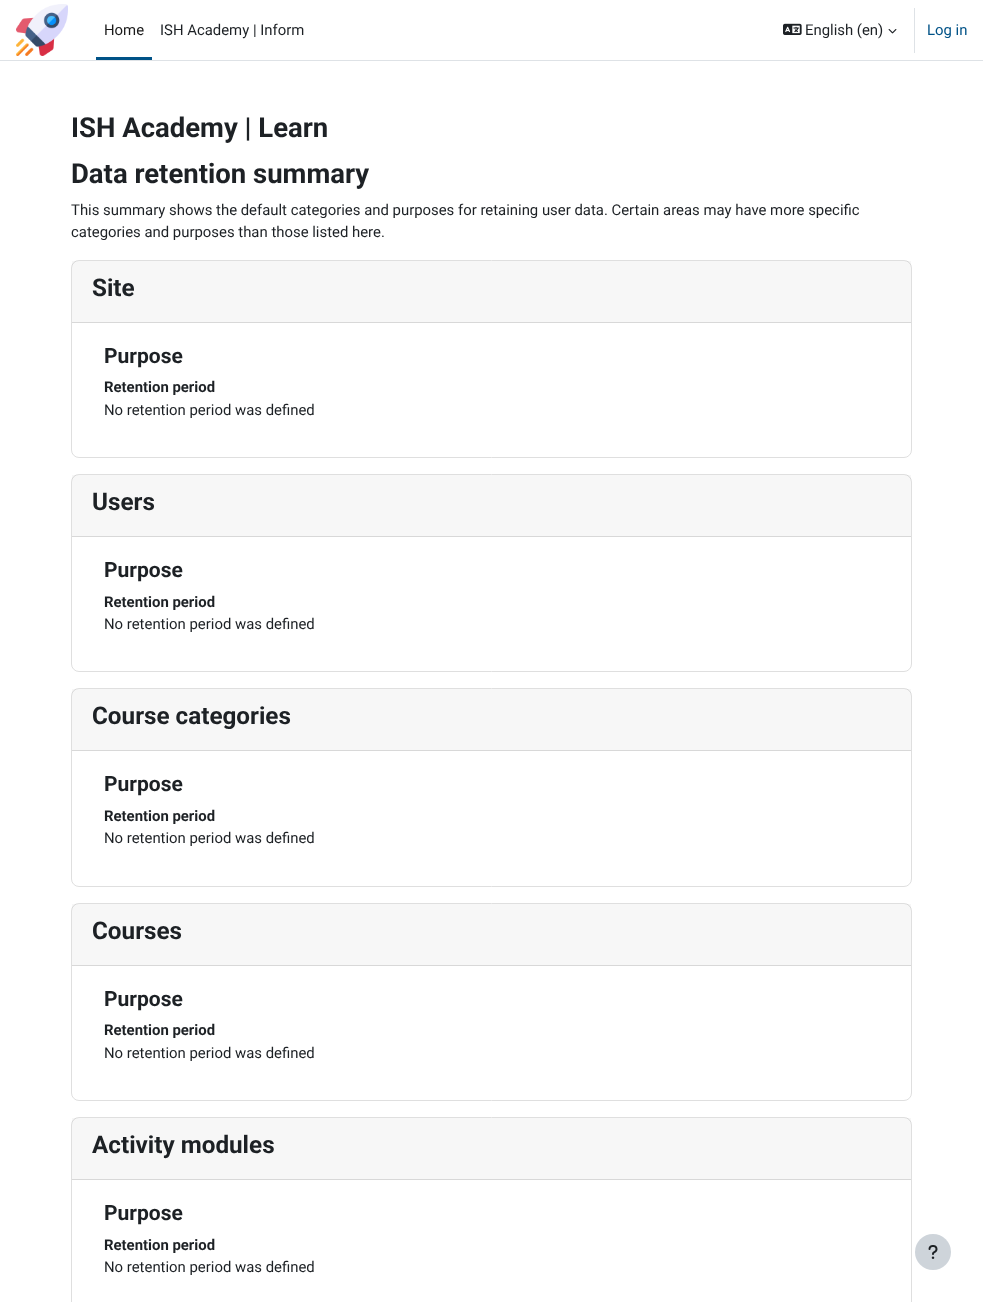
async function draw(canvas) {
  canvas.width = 983
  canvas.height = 1302
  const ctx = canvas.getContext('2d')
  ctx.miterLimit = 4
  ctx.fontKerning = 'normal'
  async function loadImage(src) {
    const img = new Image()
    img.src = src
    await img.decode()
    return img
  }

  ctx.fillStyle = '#fff'
  ctx.fillRect(0, 0, 983, 1302)
  ctx.fillStyle = '#dee2e6'
  ctx.fillRect(0, 60, 983, 1)
  ctx.drawImage(await loadImage('image0.png'), 16, 4, 52, 52)
  ctx.fillStyle = '#005287'
  ctx.fillRect(96, 57, 56, 3)
  ctx.font = '14.9px Roboto'
  ctx.fillStyle = '#1a1a1a'
  ctx.fillText('Home', 104, 35)
  ctx.fillStyle = '#1d2125'
  ctx.fillText('ISH Academy | Inform', 160, 35)
  ctx.drawImage(await loadImage('image1.png'), 783, 23, 19, 12)
  ctx.fillText('English (en)', 805, 35)
  ctx.drawImage(await loadImage('image2.png'), 888, 29, 9, 5)
  ctx.fillStyle = '#dee2e6'
  ctx.fillRect(914, 8, 1, 45)
  ctx.fillStyle = '#005287'
  ctx.fillText('Log in', 927, 35)
  ctx.font = 'bold 27.5px Roboto'
  ctx.fillStyle = '#1d2125'
  ctx.fillText('ISH Academy | Learn', 71, 137)
  ctx.fillText('Data retention summary', 71, 183)
  ctx.font = '14.9px Roboto'
  ctx.fillText('This summary shows the default categories and purposes for retaining user data. Certain areas may have more specific', 71, 215)
  ctx.fillText('categories and purposes than those listed here.', 71, 237)
  ctx.beginPath()
  ctx.roundRect(71.5, 260.5, 840, 197, 7.5)
  ctx.strokeStyle = '#dfdfdf'
  ctx.stroke()
  ctx.fillStyle = '#00000008'
  ctx.fillRect(72, 261, 839, 61)
  ctx.fillStyle = '#d8d8d8'
  ctx.fillRect(72, 322, 839, 1)
  ctx.font = 'bold 24.25px Roboto'
  ctx.fillStyle = '#1d2125'
  ctx.fillText('Site', 92, 296)
  ctx.font = 'bold 21px Roboto'
  ctx.fillText('Purpose', 104, 363)
  ctx.font = 'bold 14.9px Roboto'
  ctx.fillText('Retention period', 104, 392)
  ctx.font = '14.9px Roboto'
  ctx.fillText('No retention period was defined', 104, 415)
  ctx.beginPath()
  ctx.roundRect(71.5, 474.5, 840, 197, 7.5)
  ctx.stroke()
  ctx.fillStyle = '#00000008'
  ctx.fillRect(72, 475, 839, 61)
  ctx.fillStyle = '#d8d8d8'
  ctx.fillRect(72, 536, 839, 1)
  ctx.font = 'bold 24.25px Roboto'
  ctx.fillStyle = '#1d2125'
  ctx.fillText('Users', 92, 510)
  ctx.font = 'bold 21px Roboto'
  ctx.fillText('Purpose', 104, 577)
  ctx.font = 'bold 14.9px Roboto'
  ctx.fillText('Retention period', 104, 607)
  ctx.font = '14.9px Roboto'
  ctx.fillText('No retention period was defined', 104, 629)
  ctx.beginPath()
  ctx.roundRect(71.5, 688.5, 840, 198, 7.5)
  ctx.stroke()
  ctx.fillStyle = '#00000008'
  ctx.fillRect(72, 689, 839, 61)
  ctx.fillStyle = '#d8d8d8'
  ctx.fillRect(72, 750, 839, 1)
  ctx.font = 'bold 24.25px Roboto'
  ctx.fillStyle = '#1d2125'
  ctx.fillText('Course categories', 92, 724)
  ctx.font = 'bold 21px Roboto'
  ctx.fillText('Purpose', 104, 791)
  ctx.font = 'bold 14.9px Roboto'
  ctx.fillText('Retention period', 104, 821)
  ctx.font = '14.9px Roboto'
  ctx.fillText('No retention period was defined', 104, 843)
  ctx.beginPath()
  ctx.roundRect(71.5, 903.5, 840, 197, 7.5)
  ctx.stroke()
  ctx.fillStyle = '#00000008'
  ctx.fillRect(72, 904, 839, 61)
  ctx.fillStyle = '#d8d8d8'
  ctx.fillRect(72, 965, 839, 1)
  ctx.font = 'bold 24.25px Roboto'
  ctx.fillStyle = '#1d2125'
  ctx.fillText('Courses', 92, 939)
  ctx.font = 'bold 21px Roboto'
  ctx.fillText('Purpose', 104, 1006)
  ctx.font = 'bold 14.9px Roboto'
  ctx.fillText('Retention period', 104, 1035)
  ctx.font = '14.9px Roboto'
  ctx.fillText('No retention period was defined', 104, 1058)
  ctx.beginPath()
  ctx.roundRect(71.5, 1117.5, 840, 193, 7.5)
  ctx.stroke()
  ctx.fillStyle = '#00000008'
  ctx.fillRect(72, 1118, 839, 61)
  ctx.fillStyle = '#d8d8d8'
  ctx.fillRect(72, 1179, 839, 1)
  ctx.font = 'bold 24.25px Roboto'
  ctx.fillStyle = '#1d2125'
  ctx.fillText('Activity modules', 92, 1153)
  ctx.font = 'bold 21px Roboto'
  ctx.fillText('Purpose', 104, 1220)
  ctx.font = 'bold 14.9px Roboto'
  ctx.fillText('Retention period', 104, 1250)
  ctx.font = '14.9px Roboto'
  ctx.fillText('No retention period was defined', 104, 1272)
  ctx.fillStyle = '#ced4da'
  ctx.beginPath()
  ctx.arc(933, 1252, 18, 0, 2 * Math.PI)
  ctx.fill()
  ctx.drawImage(await loadImage('image3.png'), 928, 1245, 10, 14)
}

draw(document.querySelector('canvas'))
